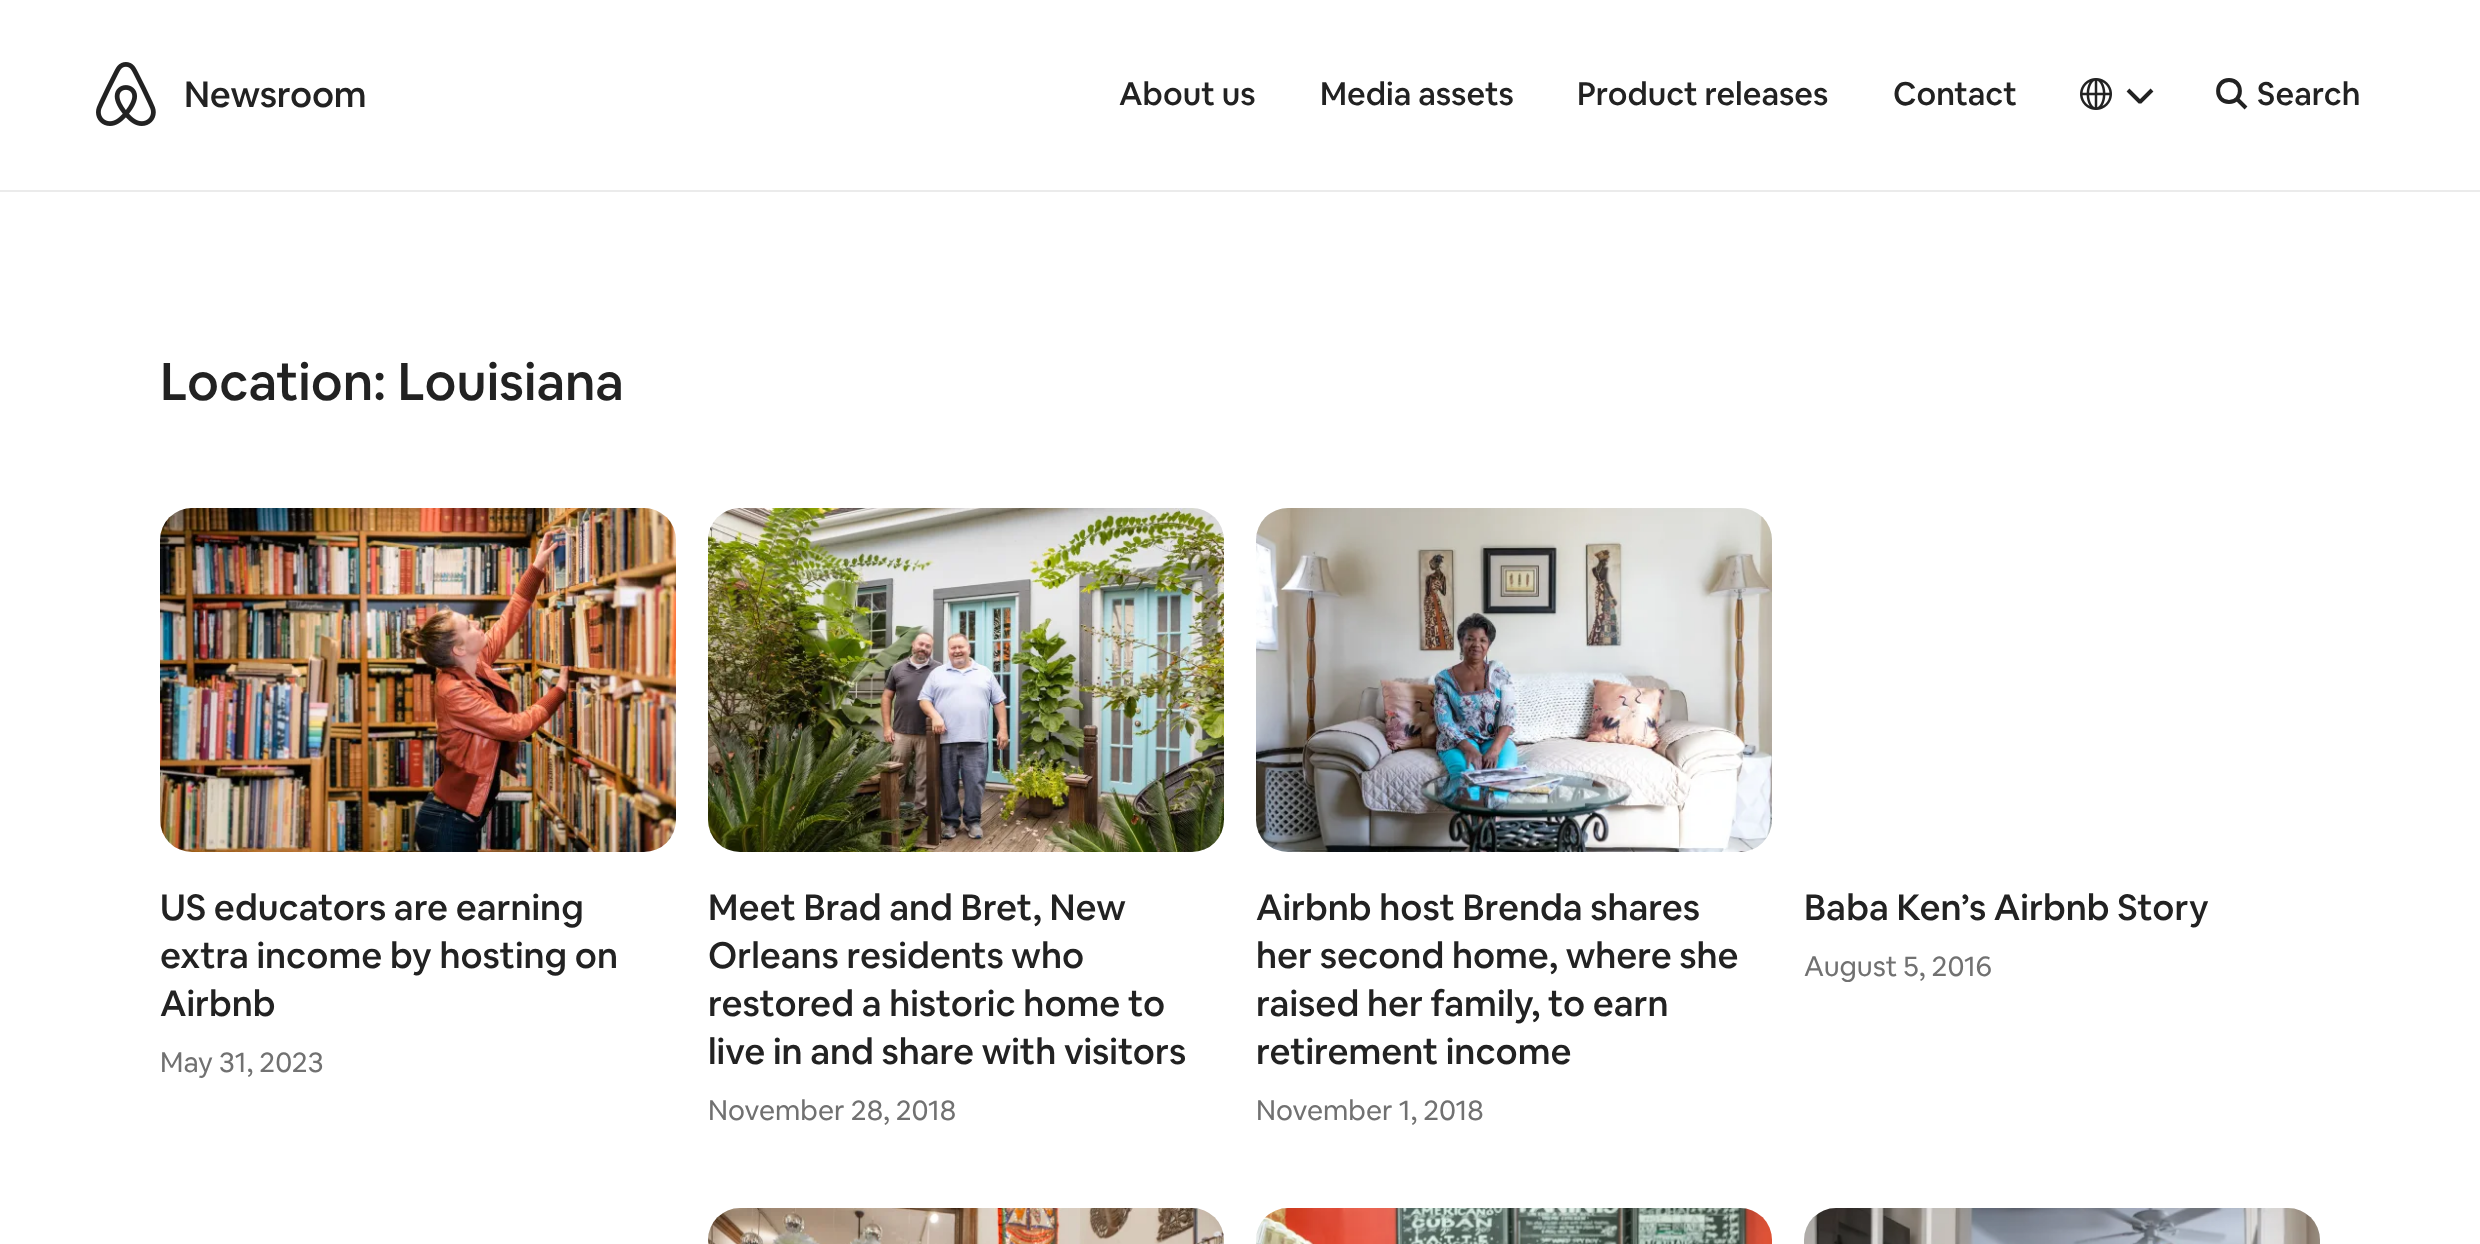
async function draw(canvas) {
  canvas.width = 2480
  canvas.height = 1244
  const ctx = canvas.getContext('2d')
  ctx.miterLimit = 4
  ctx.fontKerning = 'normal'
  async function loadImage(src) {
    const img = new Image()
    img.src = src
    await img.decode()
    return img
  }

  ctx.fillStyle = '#fff'
  ctx.fillRect(0, 0, 2480, 1244)
  ctx.fillStyle = '#ebebeb'
  ctx.fillRect(0, 190, 2480, 2)
  ctx.drawImage(await loadImage('image0.png'), 96, 62, 60, 64)
  ctx.letterSpacing = '-0.25px'
  ctx.font = '500 36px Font'
  ctx.fillStyle = '#222'
  ctx.fillText('Newsroom', 184, 107)
  ctx.letterSpacing = '0px'
  ctx.font = '500 32px Font'
  ctx.fillText('About us', 1119, 105)
  ctx.fillText('Media assets', 1320, 105)
  ctx.fillText('Product releases', 1577, 105)
  ctx.fillText('Contact', 1893, 105)
  ctx.drawImage(await loadImage('image1.png'), 2080, 78, 32, 32)
  ctx.beginPath()
  ctx.moveTo(2152, 90)
  ctx.lineTo(2140.5, 101.5)
  ctx.bezierCurveTo(2140.5, 101.5, 2139.5, 101.5, 2139.5, 101.5)
  ctx.lineTo(2128, 90)
  ctx.strokeStyle = '#222'
  ctx.lineWidth = 4
  ctx.stroke()
  ctx.beginPath()
  ctx.moveTo(2229, 102)
  ctx.bezierCurveTo(2243.5, 102, 2243.5, 80, 2229, 80)
  ctx.bezierCurveTo(2214.5, 80, 2214.5, 102, 2229, 102)
  ctx.closePath()
  ctx.moveTo(2237, 99)
  ctx.lineTo(2246, 108)
  ctx.stroke()
  ctx.fillText('Search', 2257, 105)
  ctx.font = '500 52px Font'
  ctx.fillText('Location: Louisiana', 160, 400)
  ctx.drawImage(await loadImage('image2.png'), 160, 508, 516, 344)
  ctx.font = '500 36px Font'
  ctx.fillText('US educators are earning', 160, 920)
  ctx.fillText('extra income by hosting on', 160, 968)
  ctx.fillText('Airbnb', 160, 1016)
  ctx.font = '28px Font'
  ctx.fillStyle = '#717171'
  ctx.fillText('May 31, 2023', 160, 1072)
  ctx.drawImage(await loadImage('image3.png'), 708, 508, 516, 344)
  ctx.font = '500 36px Font'
  ctx.fillStyle = '#222'
  ctx.fillText('Meet Brad and Bret, New', 708, 920)
  ctx.fillText('Orleans residents who', 708, 968)
  ctx.fillText('restored a historic home to', 708, 1016)
  ctx.fillText('live in and share with visitors', 708, 1064)
  ctx.font = '28px Font'
  ctx.fillStyle = '#717171'
  ctx.fillText('November 28, 2018', 708, 1120)
  ctx.drawImage(await loadImage('image4.png'), 1256, 508, 516, 344)
  ctx.font = '500 36px Font'
  ctx.fillStyle = '#222'
  ctx.fillText('Airbnb host Brenda shares', 1256, 920)
  ctx.fillText('her second home, where she', 1256, 968)
  ctx.fillText('raised her family, to earn', 1256, 1016)
  ctx.fillText('retirement income', 1256, 1064)
  ctx.font = '28px Font'
  ctx.fillStyle = '#717171'
  ctx.fillText('November 1, 2018', 1256, 1120)
  ctx.font = '500 36px Font'
  ctx.fillStyle = '#222'
  ctx.fillText('Baba Ken’s Airbnb Story', 1804, 920)
  ctx.font = '28px Font'
  ctx.fillStyle = '#717171'
  ctx.fillText('August 5, 2016', 1804, 976)
  ctx.drawImage(await loadImage('image5.png'), 708, 1208, 516, 36)
  ctx.drawImage(await loadImage('image6.png'), 1256, 1208, 516, 36)
  ctx.drawImage(await loadImage('image7.png'), 1804, 1208, 516, 36)
}

draw(document.querySelector('canvas'))
